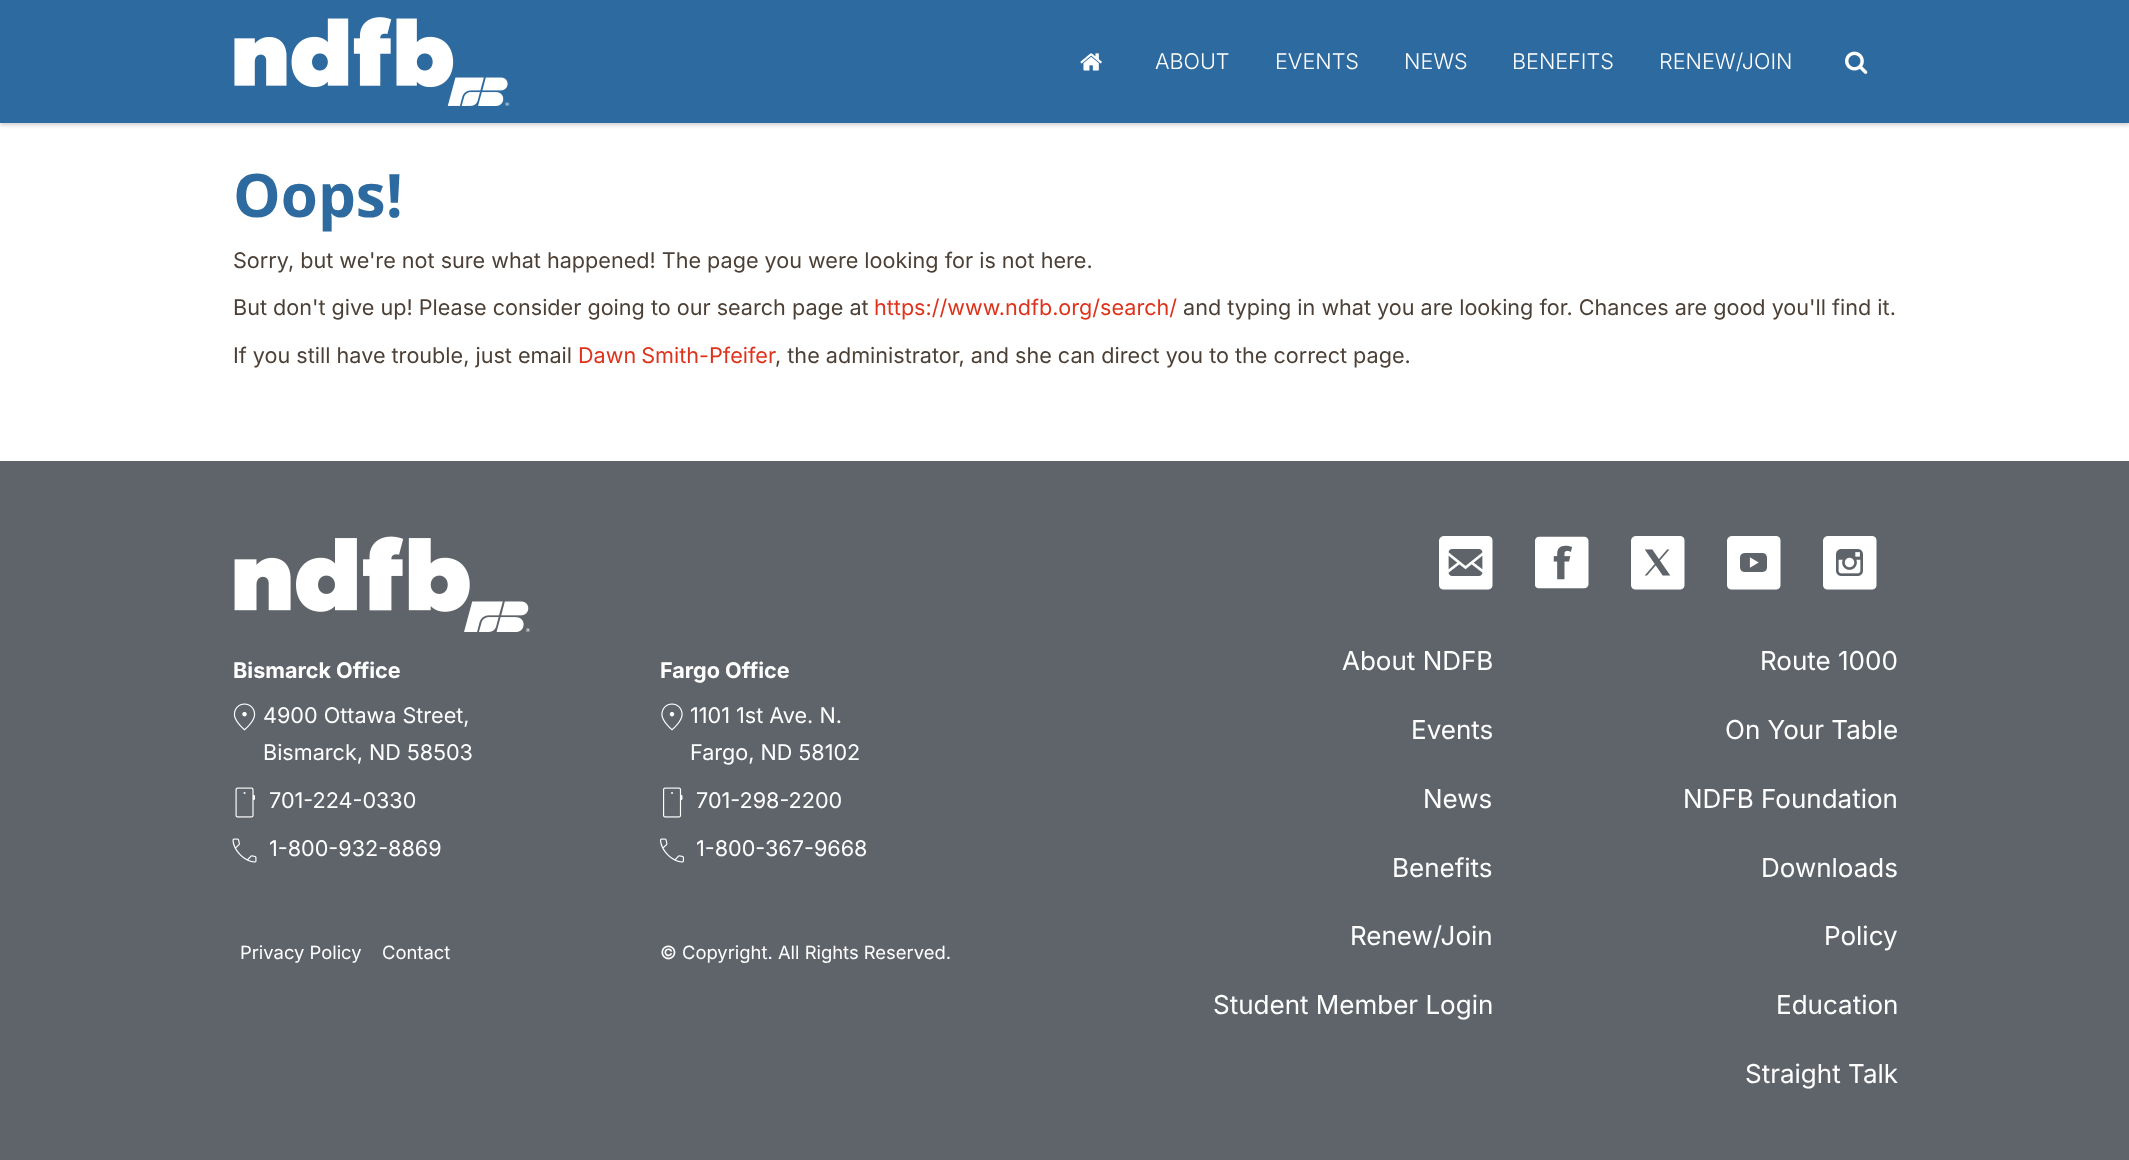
async function draw(canvas) {
  canvas.width = 2129
  canvas.height = 1160
  const ctx = canvas.getContext('2d')
  ctx.miterLimit = 4
  ctx.fontKerning = 'normal'
  async function loadImage(src) {
    const img = new Image()
    img.src = src
    await img.decode()
    return img
  }

  ctx.fillStyle = '#fff'
  ctx.fillRect(0, 0, 2129, 1160)
  ctx.fillStyle = '#00000033'
  ctx.filter = 'blur(2px)'
  ctx.beginPath()
  ctx.rect(0, 2, 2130, 123)
  ctx.fill()
  ctx.filter = 'none'
  ctx.fillStyle = '#2d6a9f'
  ctx.fillRect(0, 0, 2129, 123)
  ctx.drawImage(await loadImage('image0.png'), 234, 17, 276, 89)
  ctx.drawImage(await loadImage('image1.png'), 1080, 53, 22, 18)
  ctx.font = '300 21.6px Inter'
  ctx.fillStyle = '#fff'
  ctx.fillText('ABOUT', 1155, 69)
  ctx.fillText('EVENTS', 1275, 69)
  ctx.fillText('NEWS', 1404, 69)
  ctx.fillText('BENEFITS', 1512, 69)
  ctx.fillText('RENEW/JOIN', 1659, 69)
  ctx.drawImage(await loadImage('image2.png'), 1845, 51, 23, 23)
  ctx.font = 'bold 60px Open Sans'
  ctx.fillStyle = '#2d6a9f'
  ctx.fillText('Oops!', 233, 217)
  ctx.font = '21.6px Inter'
  ctx.fillStyle = '#4c4036'
  ctx.fillText('Sorry, but we\'re not sure what happened! The page you were looking for is not here.', 233, 268)
  ctx.fillText('But don\'t give up! Please consider going to our search page at', 233, 315)
  ctx.fillStyle = '#de321b'
  ctx.fillText('https://www.ndfb.org/search/', 874, 315)
  ctx.fillStyle = '#4c4036'
  ctx.fillText('and typing in what you are looking for. Chances are good you\'ll find it.', 1183, 315)
  ctx.fillText('If you still have trouble, just email', 233, 363)
  ctx.wordSpacing = '-1px'
  ctx.fillStyle = '#de321b'
  ctx.fillText('Dawn Smith-Pfeifer', 578, 363)
  ctx.wordSpacing = '0px'
  ctx.fillStyle = '#4c4036'
  ctx.fillText(', the administrator, and she can direct you to the correct page.', 775, 363)
  ctx.fillStyle = '#5f646a'
  ctx.fillRect(0, 461, 2129, 699)
  ctx.drawImage(await loadImage('image3.png'), 234, 536, 297, 96)
  ctx.font = 'bold 21.6px Inter'
  ctx.fillStyle = '#fff'
  ctx.fillText('Bismarck Office', 233, 678)
  ctx.drawImage(await loadImage('image4.png'), 233, 703, 23, 28)
  ctx.font = '21.6px Inter'
  ctx.fillText('4900 Ottawa Street,', 263, 723)
  ctx.fillText('Bismarck, ND 58503', 263, 760)
  ctx.drawImage(await loadImage('image5.png'), 235, 787, 20, 31)
  ctx.fillText('701-224-0330', 269, 808)
  ctx.drawImage(await loadImage('image6.png'), 232, 838, 25, 25)
  ctx.fillText('1-800-932-8869', 269, 856)
  ctx.font = 'bold 21.6px Inter'
  ctx.fillText('Fargo Office', 660, 678)
  ctx.drawImage(await loadImage('image7.png'), 661, 703, 22, 28)
  ctx.font = '21.6px Inter'
  ctx.fillText('1101 1st Ave. N.', 690, 723)
  ctx.fillText('Fargo, ND 58102', 690, 760)
  ctx.drawImage(await loadImage('image8.png'), 663, 787, 20, 31)
  ctx.fillText('701-298-2200', 696, 808)
  ctx.drawImage(await loadImage('image9.png'), 660, 838, 24, 25)
  ctx.fillText('1-800-367-9668', 696, 856)
  ctx.font = '18.4px Inter'
  ctx.fillText('Privacy Policy', 240, 959)
  ctx.fillText('Contact', 382, 959)
  ctx.fillText('© Copyright. All Rights Reserved.', 660, 959)
  ctx.drawImage(await loadImage('image10.png'), 1439, 536, 54, 54)
  ctx.drawImage(await loadImage('image11.png'), 1535, 536, 54, 53)
  ctx.drawImage(await loadImage('image12.png'), 1631, 536, 54, 54)
  ctx.drawImage(await loadImage('image13.png'), 1727, 536, 54, 54)
  ctx.drawImage(await loadImage('image14.png'), 1823, 536, 54, 54)
  ctx.font = '26px Inter'
  ctx.fillText('About NDFB', 1342, 670)
  ctx.fillText('Events', 1411, 739)
  ctx.fillText('News', 1423, 808)
  ctx.fillText('Benefits', 1392, 877)
  ctx.fillText('Renew/Join', 1350, 945)
  ctx.fillText('Student Member Login', 1213, 1014)
  ctx.fillText('Route 1000', 1760, 670)
  ctx.fillText('On Your Table', 1725, 739)
  ctx.fillText('NDFB Foundation', 1683, 808)
  ctx.fillText('Downloads', 1761, 877)
  ctx.fillText('Policy', 1824, 945)
  ctx.fillText('Education', 1776, 1014)
  ctx.fillText('Straight Talk', 1745, 1083)
}

draw(document.querySelector('canvas'))
